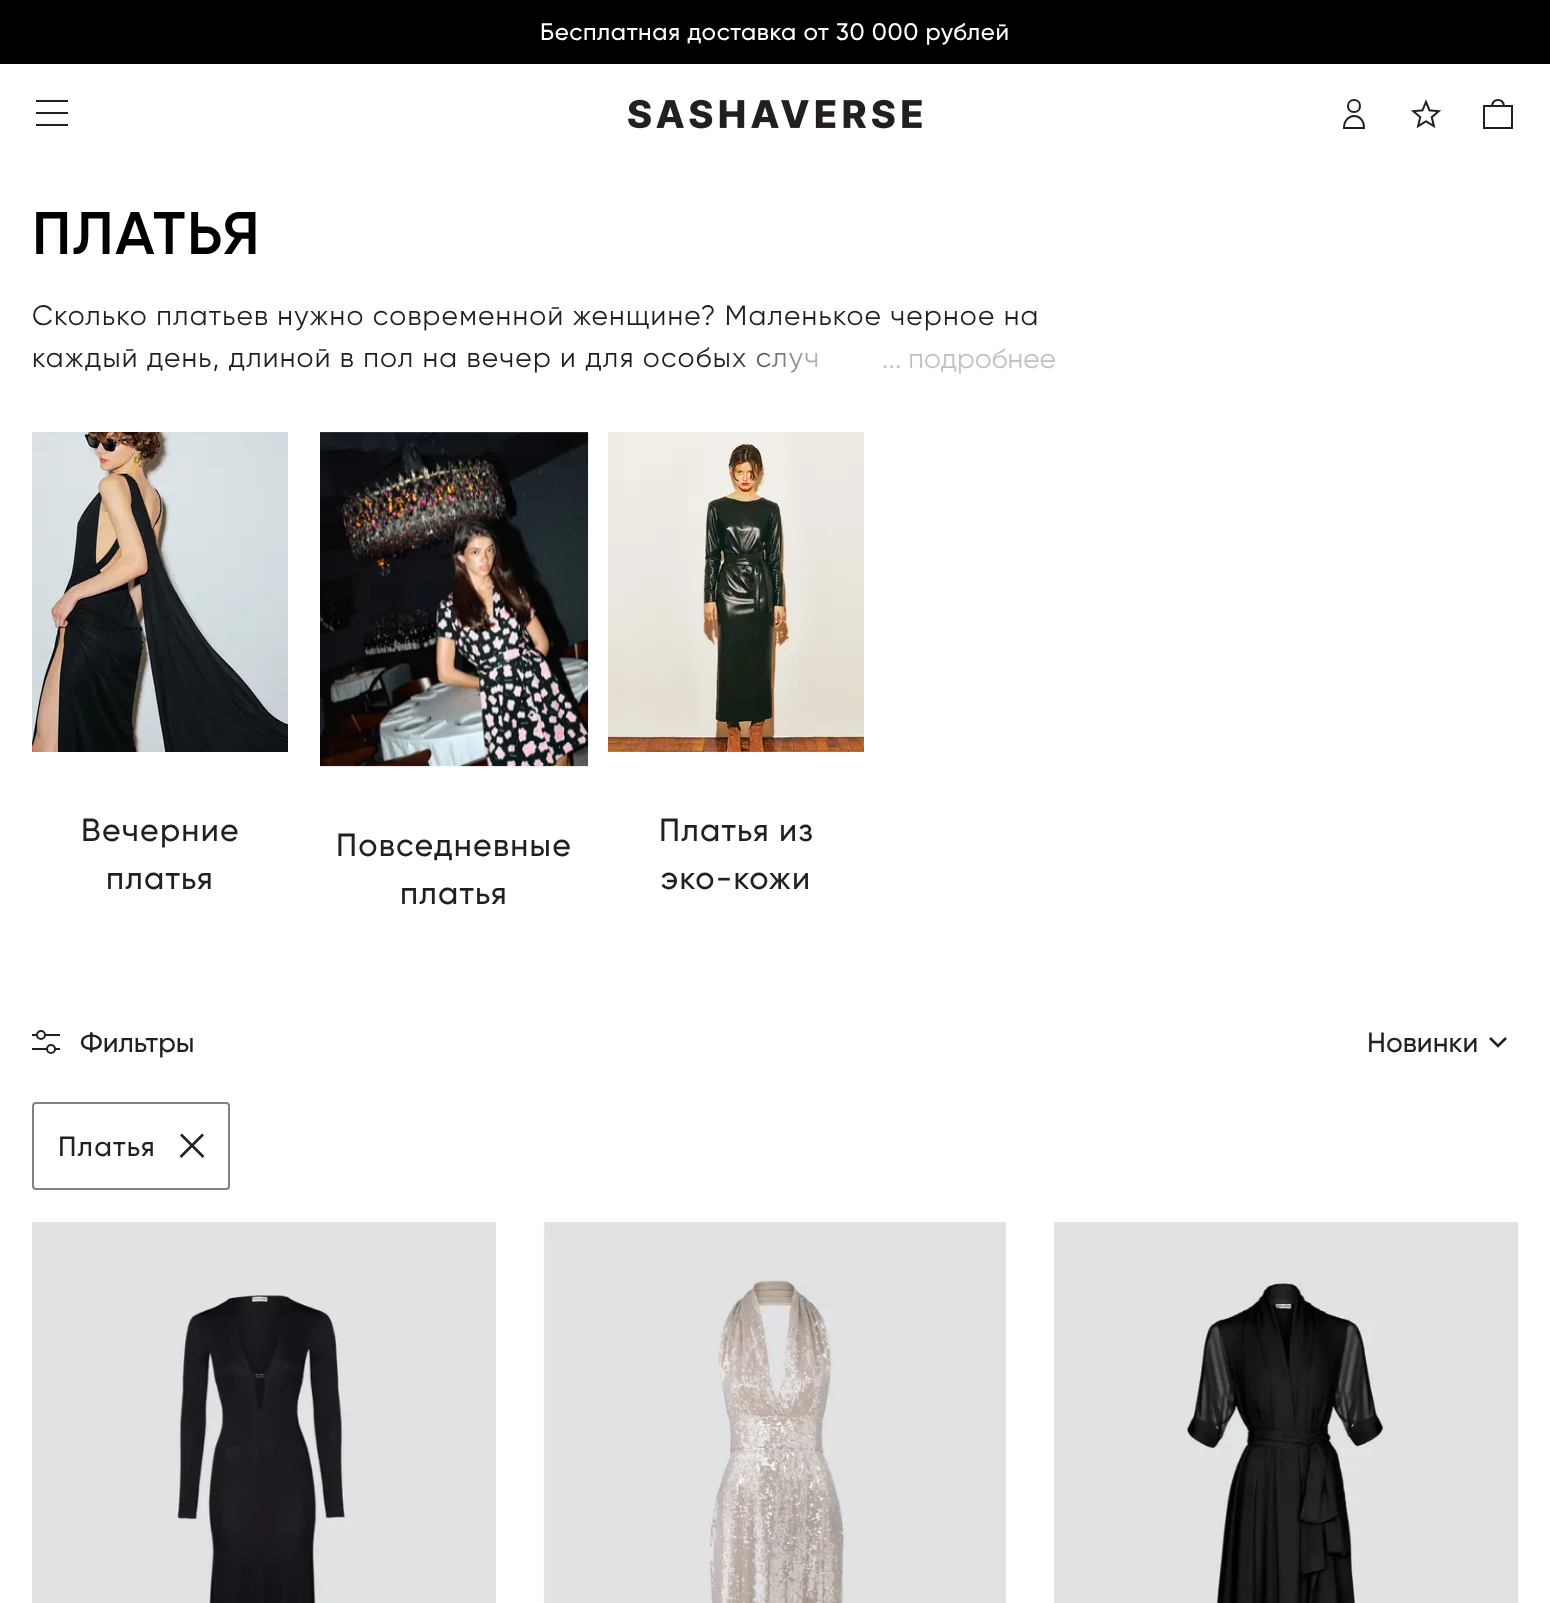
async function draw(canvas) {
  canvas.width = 1550
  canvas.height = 1603
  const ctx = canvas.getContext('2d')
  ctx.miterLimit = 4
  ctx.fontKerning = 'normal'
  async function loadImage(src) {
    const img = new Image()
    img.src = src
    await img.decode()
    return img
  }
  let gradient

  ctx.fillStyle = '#fff'
  ctx.fillRect(0, 0, 1550, 1603)
  ctx.fillStyle = '#000'
  ctx.fillRect(0, 0, 1550, 64)
  ctx.letterSpacing = '0.6px'
  ctx.font = '500 24px Gilroy'
  ctx.fillStyle = '#fff'
  ctx.fillText('Бесплатная доставка от 30 000 рублей', 540, 40)
  ctx.fillStyle = '#231f1f'
  ctx.fillRect(36, 100, 32, 2)
  ctx.fillRect(36, 112, 32, 2)
  ctx.fillRect(36, 124, 32, 2)
  ctx.drawImage(await loadImage('image0.png'), 628, 99, 294, 30)
  ctx.beginPath()
  ctx.moveTo(1344, 128)
  ctx.bezierCurveTo(1344, 112.5, 1364, 111.5, 1364, 128)
  ctx.closePath()
  ctx.moveTo(1354, 112)
  ctx.bezierCurveTo(1362, 112, 1362, 100, 1354, 100)
  ctx.bezierCurveTo(1346, 100, 1346, 112, 1354, 112)
  ctx.closePath()
  ctx.strokeStyle = '#231f1f'
  ctx.lineWidth = 2
  ctx.stroke()
  ctx.drawImage(await loadImage('image1.png'), 1411, 99, 31, 30)
  ctx.beginPath()
  ctx.moveTo(1484, 128)
  ctx.lineTo(1484, 106)
  ctx.lineTo(1512, 106)
  ctx.lineTo(1512, 128)
  ctx.closePath()
  ctx.moveTo(1492, 106)
  ctx.bezierCurveTo(1493, 98, 1503, 98, 1504, 106)
  ctx.stroke()
  ctx.letterSpacing = '1.5px'
  ctx.font = '600 60px Gilroy'
  ctx.fillStyle = '#000'
  ctx.fillText('ПЛАТЬЯ', 32, 254)
  ctx.letterSpacing = '1.2px'
  ctx.font = '28px Gilroy'
  ctx.fillStyle = '#231f1f'
  ctx.fillText('Сколько платьев нужно современной женщине? Маленькое черное на', 32, 325)
  ctx.fillText('каждый день, длиной в пол на вечер и для особых случ', 32, 367)
  gradient = ctx.createLinearGradient(722, 360, 882, 360)
  gradient.addColorStop(0, '#ffffff00')
  gradient.addColorStop(0.9, '#fff')
  ctx.fillStyle = gradient
  ctx.fillRect(727, 352, 91, 21)
  ctx.letterSpacing = '0px'
  ctx.fillStyle = '#c1c1c1'
  ctx.fillText('... подробнее', 882, 368)
  ctx.drawImage(await loadImage('image2.png'), 32, 432, 256, 320)
  ctx.letterSpacing = '1.2px'
  ctx.font = '500 32px Gilroy'
  ctx.fillStyle = '#231f1f'
  ctx.fillText('Вечерние', 81, 841)
  ctx.fillText('платья', 106, 889)
  ctx.drawImage(await loadImage('image3.png'), 320, 432, 269, 335)
  ctx.fillText('Повседневные', 336, 856)
  ctx.fillText('платья', 400, 904)
  ctx.drawImage(await loadImage('image4.png'), 608, 432, 256, 320)
  ctx.fillText('Платья из', 659, 841)
  ctx.fillText('эко-кожи', 661, 889)
  ctx.beginPath()
  ctx.arc(41, 1035, 4, 0, 2 * Math.PI)
  ctx.stroke()
  ctx.fillRect(44, 1034, 16, 2)
  ctx.beginPath()
  ctx.moveTo(32, 1035)
  ctx.lineTo(38, 1035)
  ctx.stroke()
  ctx.fillRect(32, 1048, 16, 2)
  ctx.fillRect(54, 1048, 6, 2)
  ctx.beginPath()
  ctx.arc(51, 1049, 4, 0, 2 * Math.PI)
  ctx.stroke()
  ctx.letterSpacing = '0px'
  ctx.font = '500 28px Gilroy'
  ctx.fillText('Фильтры', 80, 1052)
  ctx.fillText('Новинки', 1367, 1052)
  ctx.beginPath()
  ctx.moveTo(1506, 1038)
  ctx.lineTo(1498, 1046)
  ctx.lineTo(1490, 1038)
  ctx.lineWidth = 2.5
  ctx.stroke()
  ctx.beginPath()
  ctx.roundRect(33, 1103, 196, 86, 3)
  ctx.strokeStyle = '#828282'
  ctx.lineWidth = 2
  ctx.stroke()
  ctx.letterSpacing = '1.2px'
  ctx.fillText('Платья', 58, 1156)
  ctx.beginPath()
  ctx.moveTo(181, 1134.5)
  ctx.lineTo(203.5, 1157)
  ctx.moveTo(203, 1134.5)
  ctx.lineTo(180.5, 1157)
  ctx.strokeStyle = '#231f1f'
  ctx.lineWidth = 2.5
  ctx.stroke()
  ctx.drawImage(await loadImage('image5.png'), 32, 1222, 464, 381)
  ctx.drawImage(await loadImage('image6.png'), 543, 1222, 464, 381)
  ctx.drawImage(await loadImage('image7.png'), 1054, 1222, 464, 381)
}

draw(document.querySelector('canvas'))
